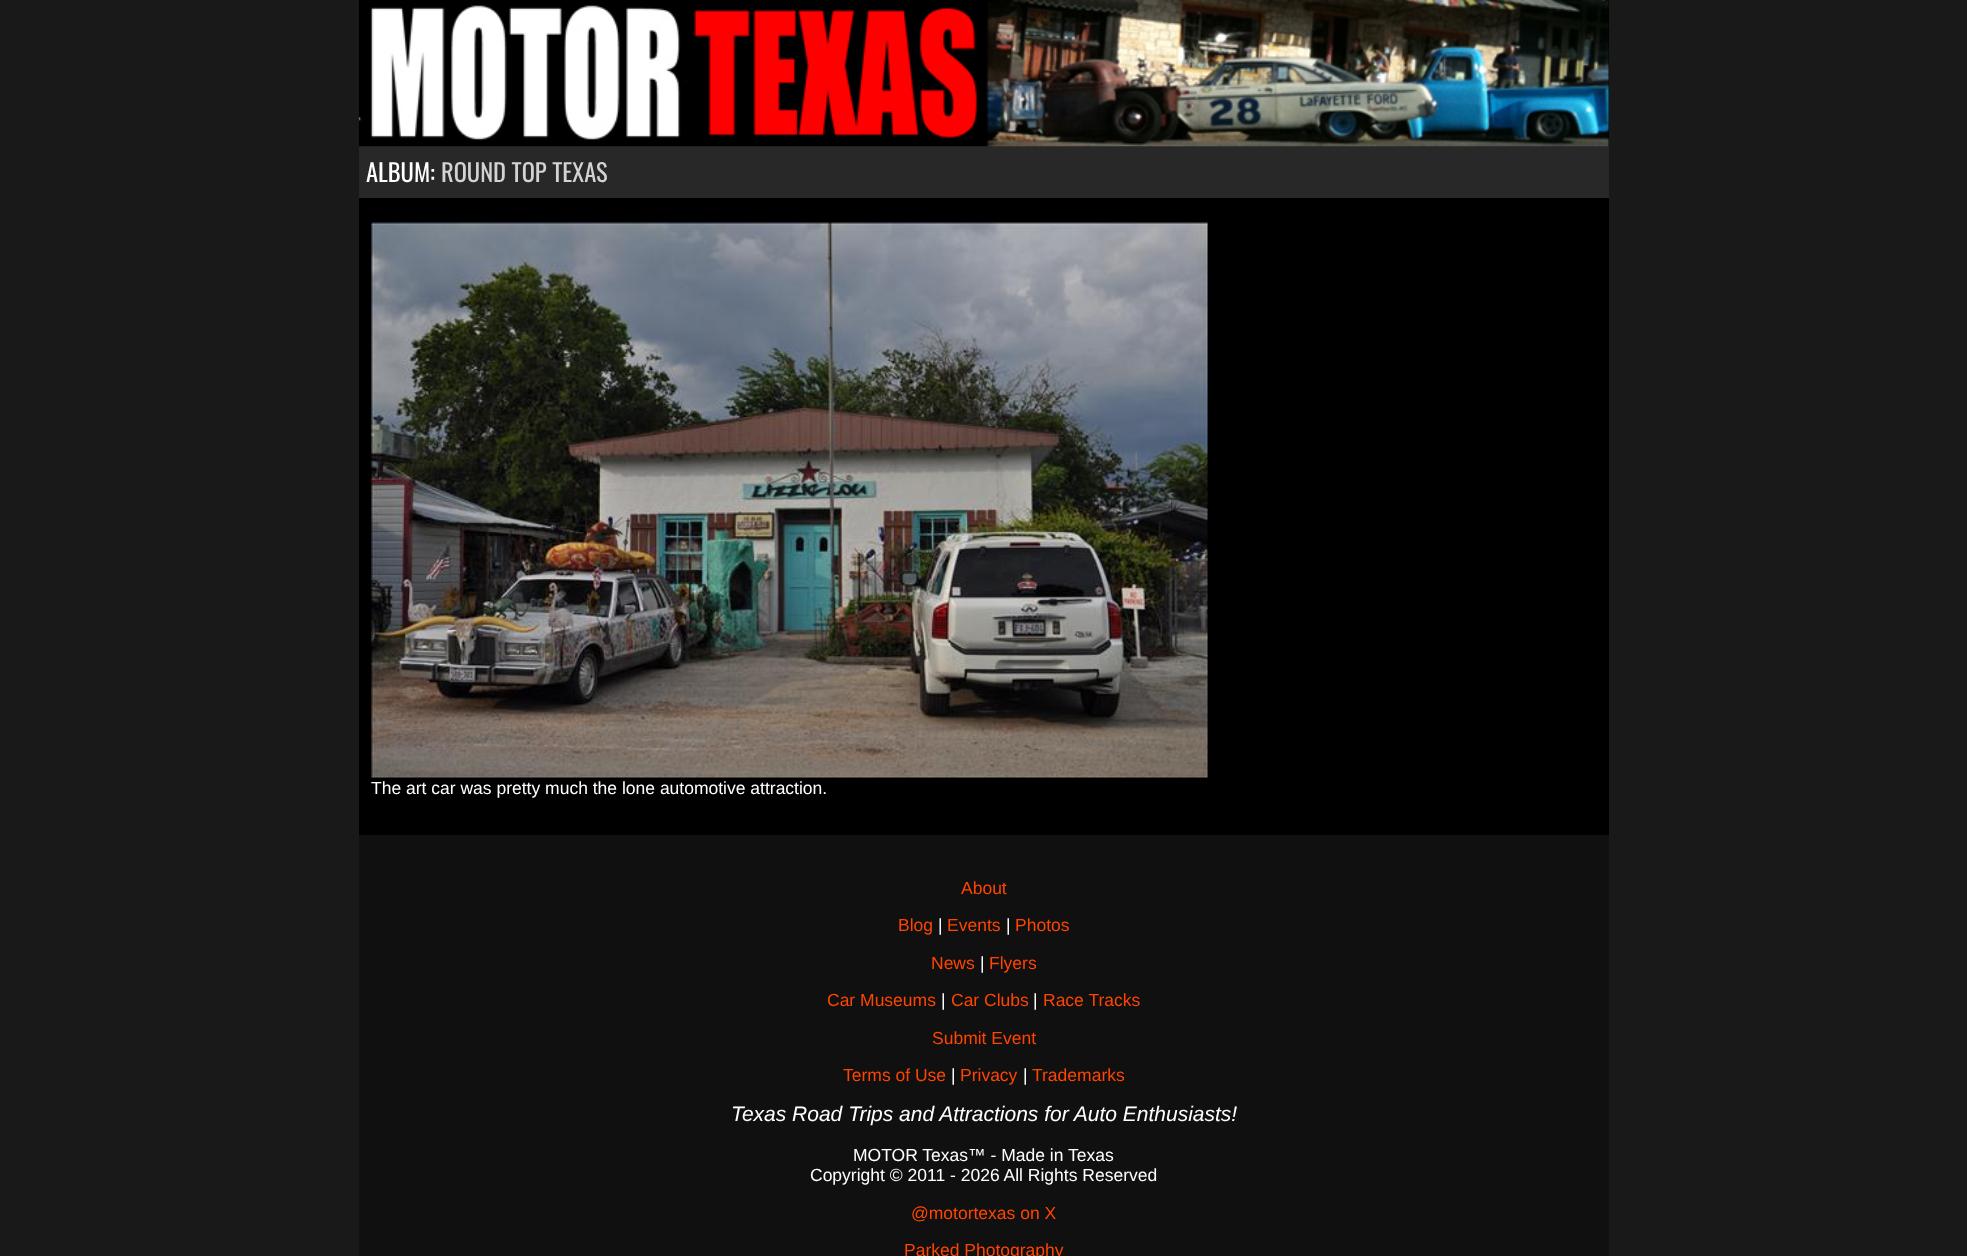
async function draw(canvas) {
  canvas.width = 1967
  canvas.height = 1256
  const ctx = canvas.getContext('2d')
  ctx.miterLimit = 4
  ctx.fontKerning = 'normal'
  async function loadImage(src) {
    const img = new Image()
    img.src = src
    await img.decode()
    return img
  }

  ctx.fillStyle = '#191919'
  ctx.fillRect(0, 0, 1967, 1256)
  ctx.fillStyle = '#000'
  ctx.fillRect(359, 0, 1250, 835)
  ctx.fillStyle = '#282828'
  ctx.fillRect(359, 146, 1250, 52)
  ctx.drawImage(await loadImage('image0.png'), 358, 0, 1251, 147)
  ctx.font = '24.5px Oswald'
  ctx.fillStyle = '#fff'
  ctx.fillText('ALBUM:', 366, 182)
  ctx.fillStyle = '#d3d3d3'
  ctx.fillText('ROUND TOP TEXAS', 441, 182)
  ctx.drawImage(await loadImage('image1.png'), 371, 222, 837, 556)
  ctx.font = '17.5px Liberation Sans'
  ctx.fillStyle = '#fff'
  ctx.fillText('The art car was pretty much the lone automotive attraction.', 371, 794)
  ctx.fillStyle = '#101010'
  ctx.fillRect(359, 835, 1250, 421)
  ctx.fillStyle = '#ff4500'
  ctx.fillText('About', 961, 894)
  ctx.fillText('Blog', 898, 931)
  ctx.fillStyle = '#fff'
  ctx.fillText('|', 938, 931)
  ctx.fillStyle = '#ff4500'
  ctx.fillText('Events', 947, 931)
  ctx.fillStyle = '#fff'
  ctx.fillText('|', 1006, 931)
  ctx.fillStyle = '#ff4500'
  ctx.fillText('Photos', 1015, 931)
  ctx.fillText('News', 931, 969)
  ctx.fillStyle = '#fff'
  ctx.fillText('|', 980, 969)
  ctx.fillStyle = '#ff4500'
  ctx.fillText('Flyers', 989, 969)
  ctx.fillText('Car Museums', 827, 1006)
  ctx.fillStyle = '#fff'
  ctx.fillText('|', 941, 1006)
  ctx.fillStyle = '#ff4500'
  ctx.fillText('Car Clubs', 951, 1006)
  ctx.fillStyle = '#fff'
  ctx.fillText('|', 1033, 1006)
  ctx.fillStyle = '#ff4500'
  ctx.fillText('Race Tracks', 1043, 1006)
  ctx.fillText('Submit Event', 932, 1044)
  ctx.fillText('Terms of Use', 843, 1081)
  ctx.fillStyle = '#fff'
  ctx.fillText('|', 951, 1081)
  ctx.fillStyle = '#ff4500'
  ctx.fillText('Privacy', 960, 1081)
  ctx.fillStyle = '#fff'
  ctx.fillText('|', 1023, 1081)
  ctx.fillStyle = '#ff4500'
  ctx.fillText('Trademarks', 1032, 1081)
  ctx.font = 'italic 21px Liberation Sans'
  ctx.fillStyle = '#fff'
  ctx.fillText('Texas Road Trips and Attractions for Auto Enthusiasts!', 731, 1121)
  ctx.font = '17.5px Liberation Sans'
  ctx.fillText('MOTOR Texas™ - Made in Texas', 853, 1161)
  ctx.fillText('Copyright © 2011 - 2026 All Rights Reserved', 810, 1181)
  ctx.fillStyle = '#ff4500'
  ctx.fillText('@motortexas on X', 911, 1219)
  ctx.fillText('Parked Photography', 904, 1256)
}

draw(document.querySelector('canvas'))
